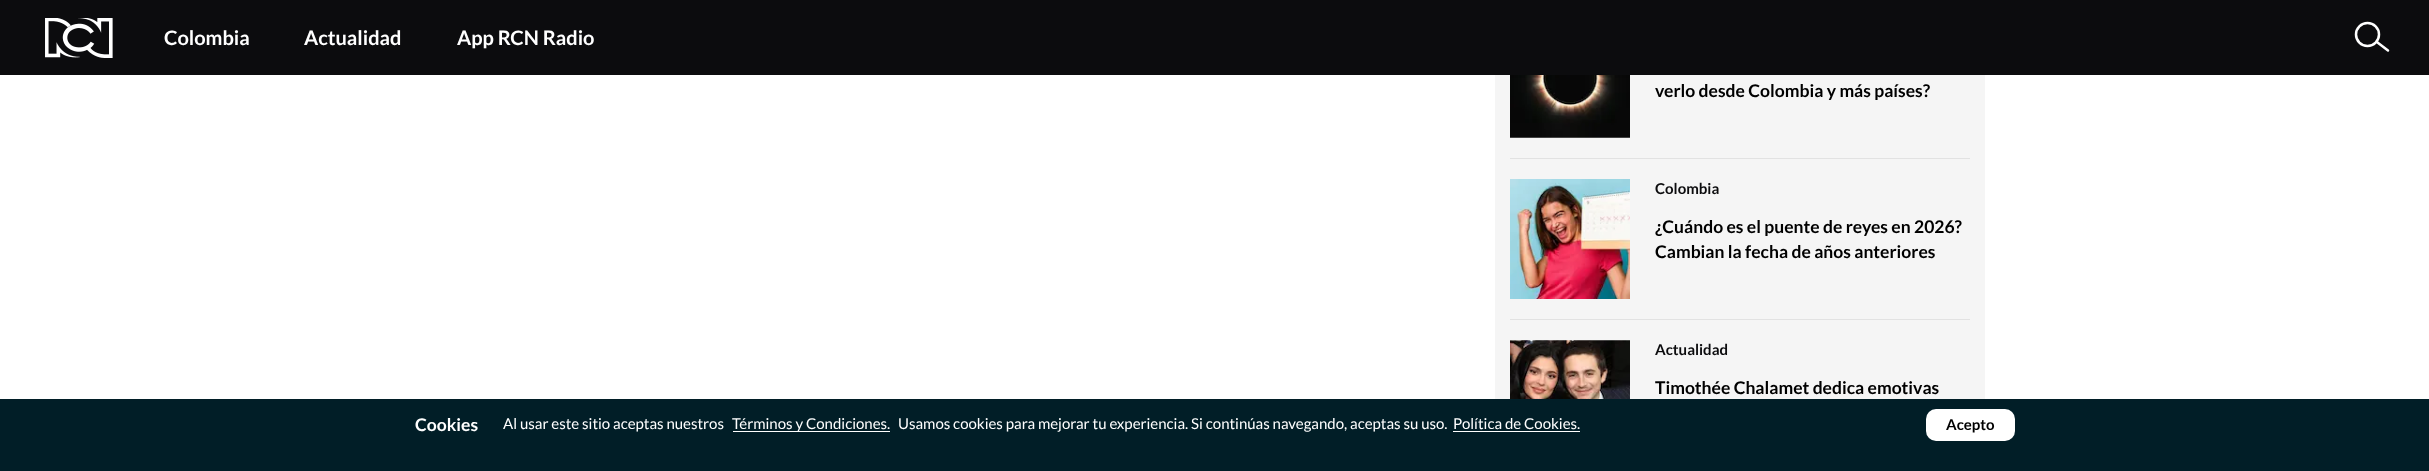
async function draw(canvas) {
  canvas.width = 2429
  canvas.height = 471
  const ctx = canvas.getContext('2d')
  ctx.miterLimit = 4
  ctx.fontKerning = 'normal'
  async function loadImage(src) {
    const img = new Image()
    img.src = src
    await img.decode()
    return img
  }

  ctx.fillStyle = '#fff'
  ctx.fillRect(0, 0, 2429, 471)
  ctx.fillStyle = '#0c0c0e'
  ctx.fillRect(0, 0, 2429, 75)
  ctx.drawImage(await loadImage('image0.png'), 45, 18, 68, 40)
  ctx.font = 'bold 20px Lato'
  ctx.fillStyle = '#fff'
  ctx.fillText('Colombia', 164, 45)
  ctx.fillText('Actualidad', 304, 45)
  ctx.fillText('App RCN Radio', 457, 45)
  ctx.beginPath()
  ctx.arc(2367.5, 34.5, 11.5, 0, 2 * Math.PI)
  ctx.strokeStyle = '#fff'
  ctx.lineWidth = 2.5
  ctx.stroke()
  ctx.beginPath()
  ctx.moveTo(2377.5, 42.5)
  ctx.lineTo(2388, 50.5)
  ctx.lineCap = 'round'
  ctx.stroke()
  ctx.fillStyle = '#f5f5f5'
  ctx.fillRect(1495, 75, 490, 324)
  ctx.fillStyle = '#e2e2e2'
  ctx.fillRect(1510, 158, 460, 1)
  ctx.drawImage(await loadImage('image1.png'), 1510, 75, 120, 63)
  ctx.font = 'bold 17.5px Lato'
  ctx.fillStyle = '#000'
  ctx.fillText('verlo desde Colombia y más países?', 1655, 97)
  ctx.fillStyle = '#e2e2e2'
  ctx.fillRect(1510, 319, 460, 1)
  ctx.drawImage(await loadImage('image2.png'), 1510, 179, 120, 120)
  ctx.font = 'bold 15px Lato'
  ctx.fillStyle = '#0c0c0e'
  ctx.fillText('Colombia', 1655, 194)
  ctx.font = 'bold 17.5px Lato'
  ctx.fillStyle = '#000'
  ctx.fillText('¿Cuándo es el puente de reyes en 2026?', 1655, 233)
  ctx.fillText('Cambian la fecha de años anteriores', 1655, 258)
  ctx.drawImage(await loadImage('image3.png'), 1510, 340, 120, 59)
  ctx.font = 'bold 15px Lato'
  ctx.fillStyle = '#0c0c0e'
  ctx.fillText('Actualidad', 1655, 355)
  ctx.font = 'bold 17.5px Lato'
  ctx.fillStyle = '#000'
  ctx.fillText('Timothée Chalamet dedica emotivas', 1655, 394)
  ctx.fillStyle = '#011e27'
  ctx.fillRect(0, 399, 2429, 72)
  ctx.fillStyle = '#fff'
  ctx.fillText('Cookies', 415, 431)
  ctx.font = '15px Lato'
  ctx.fillText('Al usar este sitio aceptas nuestros', 503, 429)
  ctx.fillRect(733, 431, 157, 1)
  ctx.fillText('Términos y Condiciones.', 732, 429)
  ctx.fillText('Usamos cookies para mejorar tu experiencia. Si continúas navegando, aceptas su uso.', 898, 429)
  ctx.fillText('Política de Cookies.', 1453, 429)
  ctx.fillRect(1453, 431, 127, 1)
  ctx.beginPath()
  ctx.roundRect(1926, 409, 89, 32, 10)
  ctx.fill()
  ctx.font = 'bold 15px Lato'
  ctx.fillStyle = '#000'
  ctx.fillText('Acepto', 1946, 430)
}

draw(document.querySelector('canvas'))
